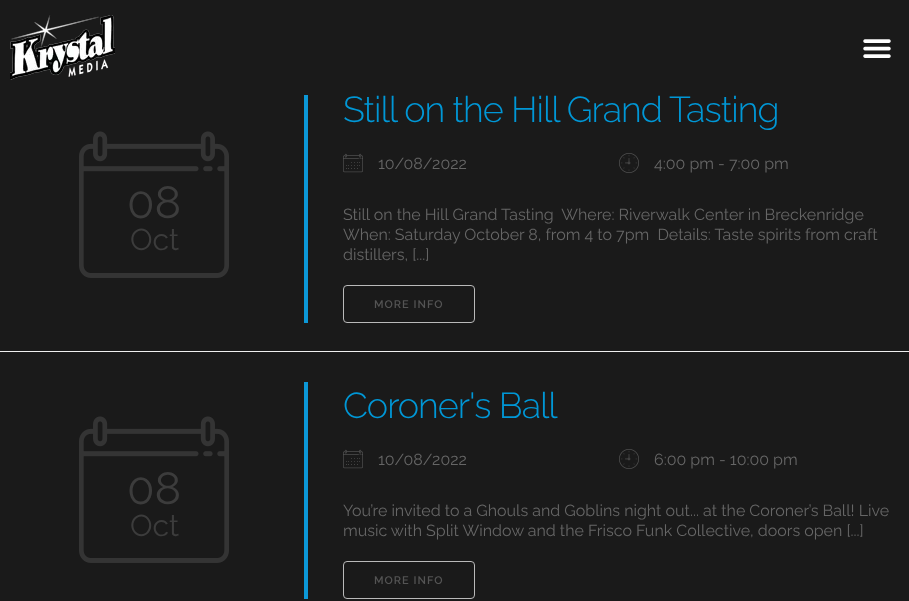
async function draw(canvas) {
  canvas.width = 909
  canvas.height = 601
  const ctx = canvas.getContext('2d')
  ctx.miterLimit = 4
  ctx.fontKerning = 'normal'
  async function loadImage(src) {
    const img = new Image()
    img.src = src
    await img.decode()
    return img
  }

  ctx.fillStyle = '#1a1a1a'
  ctx.fillRect(0, 0, 909, 601)
  ctx.drawImage(await loadImage('image0.png'), 10, 15, 105, 65)
  ctx.drawImage(await loadImage('image1.png'), 863, 39, 28, 19)
  ctx.drawImage(await loadImage('image2.png'), 79, 131, 150, 147)
  ctx.font = '45px Raleway'
  ctx.fillStyle = '#3c3c3c'
  ctx.fillText('08', 127, 218)
  ctx.font = '30px Raleway'
  ctx.fillText('Oct', 130, 250)
  ctx.fillStyle = '#0c98d7'
  ctx.fillRect(304, 95, 4, 228)
  ctx.letterSpacing = '-1px'
  ctx.font = '300 36px Raleway'
  ctx.fillStyle = '#0097d6'
  ctx.fillText('Still on the Hill Grand Tasting', 343, 122)
  ctx.drawImage(await loadImage('image3.png'), 343, 153, 20, 20)
  ctx.letterSpacing = '0px'
  ctx.font = '16px Raleway'
  ctx.fillStyle = '#666'
  ctx.fillText('10/08/2022', 378, 169)
  ctx.drawImage(await loadImage('image4.png'), 619, 153, 20, 20)
  ctx.fillText('4:00 pm - 7:00 pm', 654, 169)
  ctx.fillText('Still on the Hill Grand Tasting  Where: Riverwalk Center in Breckenridge', 343, 220)
  ctx.fillText('When: Saturday October 8, from 4 to 7pm  Details: Taste spirits from craft', 343, 240)
  ctx.fillText('distillers, [...]', 343, 260)
  ctx.beginPath()
  ctx.roundRect(343.5, 285.5, 131, 37, 3.5)
  ctx.strokeStyle = '#bababa'
  ctx.stroke()
  ctx.letterSpacing = '1px'
  ctx.font = '600 11px Raleway'
  ctx.fillStyle = '#545454'
  ctx.fillText('MORE INFO', 374, 308)
  ctx.fillStyle = '#efefef'
  ctx.fillRect(0, 351, 909, 1)
  ctx.drawImage(await loadImage('image2.png'), 79, 416, 150, 147)
  ctx.letterSpacing = '0px'
  ctx.font = '45px Raleway'
  ctx.fillStyle = '#3c3c3c'
  ctx.fillText('08', 127, 504)
  ctx.font = '30px Raleway'
  ctx.fillText('Oct', 130, 536)
  ctx.fillStyle = '#0c98d7'
  ctx.fillRect(304, 382, 4, 217)
  ctx.letterSpacing = '-1px'
  ctx.font = '300 36px Raleway'
  ctx.fillStyle = '#0097d6'
  ctx.fillText('Coroner\'s Ball', 343, 418)
  ctx.drawImage(await loadImage('image3.png'), 343, 449, 20, 20)
  ctx.letterSpacing = '0px'
  ctx.font = '16px Raleway'
  ctx.fillStyle = '#666'
  ctx.fillText('10/08/2022', 378, 465)
  ctx.drawImage(await loadImage('image4.png'), 619, 449, 20, 20)
  ctx.fillText('6:00 pm - 10:00 pm', 654, 465)
  ctx.fillText('You’re invited to a Ghouls and Goblins night out... at the Coroner’s Ball! Live', 343, 516)
  ctx.fillText('music with Split Window and the Frisco Funk Collective, doors open [...]', 343, 536)
  ctx.beginPath()
  ctx.roundRect(343.5, 561.5, 131, 37, 3.5)
  ctx.stroke()
  ctx.letterSpacing = '1px'
  ctx.font = '600 11px Raleway'
  ctx.fillStyle = '#545454'
  ctx.fillText('MORE INFO', 374, 584)
}

draw(document.querySelector('canvas'))
